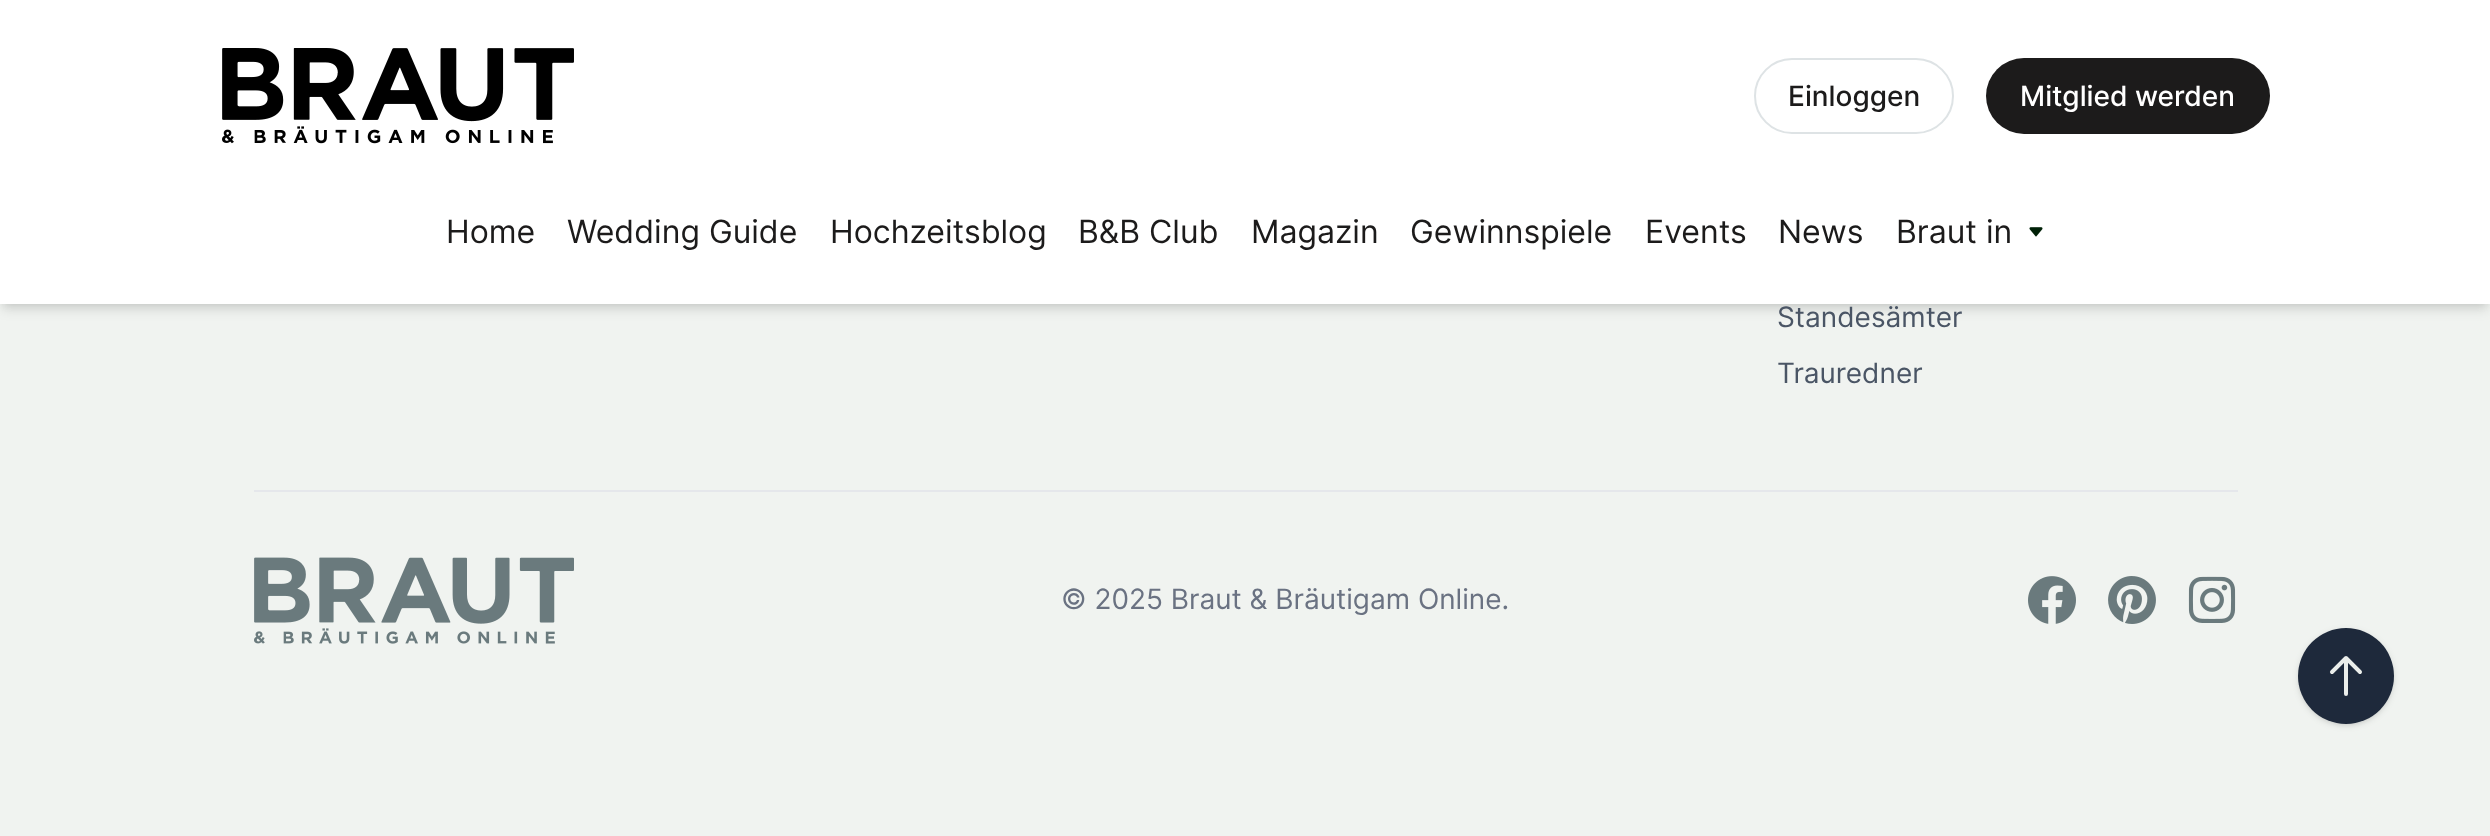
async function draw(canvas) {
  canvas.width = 2490
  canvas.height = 836
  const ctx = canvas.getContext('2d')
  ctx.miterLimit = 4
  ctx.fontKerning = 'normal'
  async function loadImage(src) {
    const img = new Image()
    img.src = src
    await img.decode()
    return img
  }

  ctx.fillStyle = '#f0f3f0'
  ctx.fillRect(0, 0, 2490, 836)
  ctx.fillStyle = '#0000001a'
  ctx.filter = 'blur(4px)'
  ctx.beginPath()
  ctx.rect(4, 8, 2482, 296)
  ctx.fill()
  ctx.filter = 'none'
  ctx.filter = 'blur(6px)'
  ctx.beginPath()
  ctx.rect(2, 10, 2486, 300)
  ctx.fill()
  ctx.filter = 'none'
  ctx.fillStyle = '#fff'
  ctx.fillRect(0, 0, 2490, 304)
  ctx.drawImage(await loadImage('image0.png'), 222, 48, 352, 96)
  ctx.beginPath()
  ctx.roundRect(1755, 59, 198, 74, 37)
  ctx.strokeStyle = '#dee3e5'
  ctx.lineWidth = 2
  ctx.stroke()
  ctx.font = '500 28px Inter'
  ctx.fillStyle = '#1c1b1b'
  ctx.fillText('Einloggen', 1788, 106)
  ctx.beginPath()
  ctx.roundRect(1986, 58, 284, 76, 38)
  ctx.fill()
  ctx.fillStyle = '#fff'
  ctx.fillText('Mitglied werden', 2020, 106)
  ctx.font = '32px Inter'
  ctx.fillStyle = '#1c1b1b'
  ctx.fillText('Home', 446, 243)
  ctx.fillText('Wedding Guide', 567, 243)
  ctx.fillText('Hochzeitsblog', 830, 243)
  ctx.fillText('B&B Club', 1078, 243)
  ctx.fillText('Magazin', 1251, 243)
  ctx.fillText('Gewinnspiele', 1410, 243)
  ctx.fillText('Events', 1645, 243)
  ctx.fillText('News', 1778, 243)
  ctx.fillText('Braut in', 1896, 243)
  ctx.drawImage(await loadImage('image1.png'), 2029, 227, 14, 10)
  ctx.font = '28px Inter'
  ctx.fillStyle = '#4a5565'
  ctx.fillText('Standesämter', 1777, 327)
  ctx.fillText('Trauredner', 1777, 383)
  ctx.fillStyle = '#e5e7eb'
  ctx.fillRect(254, 490, 1984, 2)
  ctx.drawImage(await loadImage('image2.png'), 254, 557, 320, 87)
  ctx.fillStyle = '#6a7282'
  ctx.fillText('© 2025 Braut & Bräutigam Online.', 1061, 609)
  ctx.drawImage(await loadImage('image3.png'), 2028, 576, 48, 48)
  ctx.drawImage(await loadImage('image4.png'), 2108, 576, 48, 48)
  ctx.drawImage(await loadImage('image5.png'), 2188, 576, 48, 47)
  ctx.fillStyle = '#0000001a'
  ctx.filter = 'blur(2px)'
  ctx.beginPath()
  ctx.roundRect(2300, 632, 92, 92, 46)
  ctx.fill()
  ctx.filter = 'none'
  ctx.filter = 'blur(3px)'
  ctx.beginPath()
  ctx.roundRect(2298, 630, 96, 96, 48)
  ctx.fill()
  ctx.filter = 'none'
  ctx.fillStyle = '#1e293b'
  ctx.beginPath()
  ctx.arc(2346, 676, 48, 0, 2 * Math.PI)
  ctx.fill()
  ctx.beginPath()
  ctx.moveTo(2332, 672)
  ctx.lineTo(2346, 658)
  ctx.moveTo(2346, 658)
  ctx.lineTo(2360, 672)
  ctx.moveTo(2346, 658)
  ctx.lineTo(2346, 694)
  ctx.strokeStyle = '#ebeeeb'
  ctx.lineWidth = 4
  ctx.lineCap = 'round'
  ctx.lineJoin = 'round'
  ctx.stroke()
}

draw(document.querySelector('canvas'))
